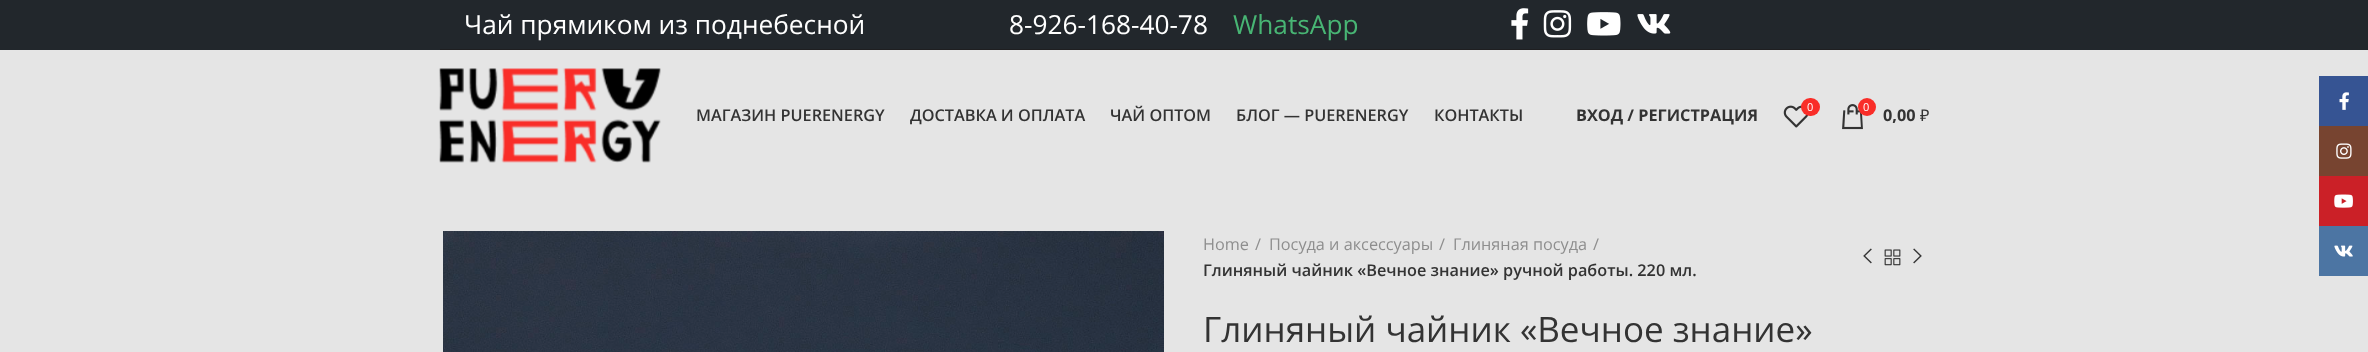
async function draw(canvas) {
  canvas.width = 2368
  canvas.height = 352
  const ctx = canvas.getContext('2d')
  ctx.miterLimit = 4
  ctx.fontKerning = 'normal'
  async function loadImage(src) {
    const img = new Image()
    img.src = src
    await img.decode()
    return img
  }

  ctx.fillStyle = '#e5e5e5'
  ctx.fillRect(0, 0, 2368, 352)
  ctx.fillStyle = '#22272c'
  ctx.fillRect(0, 0, 2368, 50)
  ctx.fillStyle = '#1f1f21'
  ctx.fillRect(440, 49, 1490, 1)
  ctx.font = '26.25px Open Sans'
  ctx.fillStyle = '#fff'
  ctx.fillText('Чай прямиком из поднебесной', 464, 34)
  ctx.fillText('8-926-168-40-78', 1009, 34)
  ctx.fillStyle = '#48b574'
  ctx.fillText('WhatsApp', 1233, 34)
  ctx.drawImage(await loadImage('image0.png'), 1511, 8, 18, 32)
  ctx.drawImage(await loadImage('image1.png'), 1543, 10, 29, 28)
  ctx.drawImage(await loadImage('image2.png'), 1587, 12, 34, 24)
  ctx.drawImage(await loadImage('image3.png'), 1637, 14, 34, 20)
  ctx.drawImage(await loadImage('image4.png'), 439, 68, 222, 95)
  ctx.font = '600 16.25px Open Sans'
  ctx.fillStyle = '#333'
  ctx.fillText('МАГАЗИН PUERENERGY', 696, 121)
  ctx.fillText('ДОСТАВКА И ОПЛАТА', 910, 121)
  ctx.fillText('ЧАЙ ОПТОМ', 1110, 121)
  ctx.fillText('БЛОГ — PUERENERGY', 1236, 121)
  ctx.fillText('КОНТАКТЫ', 1434, 121)
  ctx.font = 'bold 16.25px Open Sans'
  ctx.fillText('ВХОД / РЕГИСТРАЦИЯ', 1576, 121)
  ctx.drawImage(await loadImage('image5.png'), 1783, 105, 26, 23)
  ctx.fillStyle = '#f92d28'
  ctx.beginPath()
  ctx.roundRect(1801, 98, 19, 18, 9)
  ctx.fill()
  ctx.font = '11px Open Sans'
  ctx.fillStyle = '#fff'
  ctx.fillText('0', 1807, 111)
  ctx.drawImage(await loadImage('image6.png'), 1842, 104, 21, 26)
  ctx.fillStyle = '#f92d28'
  ctx.beginPath()
  ctx.arc(1867, 107, 9, 0, 2 * Math.PI)
  ctx.fill()
  ctx.fillStyle = '#fff'
  ctx.fillText('0', 1863, 111)
  ctx.font = 'bold 16.25px Open Sans'
  ctx.fillStyle = '#333'
  ctx.fillText('0,00', 1883, 121)
  ctx.font = '16.25px Noto Sans'
  ctx.fillText('₽', 1920, 121)
  ctx.drawImage(await loadImage('image7.png'), 443, 231, 721, 121)
  ctx.font = '16.25px Open Sans'
  ctx.fillStyle = '#8e8e8e'
  ctx.fillText('Home', 1203, 250)
  ctx.fillText('/', 1255, 250)
  ctx.fillText('Посуда и аксессуары', 1269, 250)
  ctx.fillText('/', 1439, 250)
  ctx.fillText('Глиняная посуда', 1453, 250)
  ctx.fillText('/', 1593, 250)
  ctx.font = '600 16.25px Open Sans'
  ctx.fillStyle = '#333'
  ctx.fillText('Глиняный чайник «Вечное знание» ручной работы. 220 мл.', 1203, 276)
  ctx.drawImage(await loadImage('image8.png'), 1863, 248, 9, 16)
  ctx.drawImage(await loadImage('image9.png'), 1884, 249, 17, 17)
  ctx.drawImage(await loadImage('image10.png'), 1913, 248, 9, 16)
  ctx.font = '35px Open Sans'
  ctx.fillText('Глиняный чайник «Вечное знание»', 1203, 342)
  ctx.fillStyle = '#365493'
  ctx.fillRect(2319, 76, 49, 50)
  ctx.drawImage(await loadImage('image11.png'), 2339, 92, 10, 18)
  ctx.fillStyle = '#774430'
  ctx.fillRect(2319, 126, 49, 50)
  ctx.drawImage(await loadImage('image12.png'), 2336, 143, 16, 16)
  ctx.fillStyle = '#cb2027'
  ctx.fillRect(2319, 176, 49, 50)
  ctx.drawImage(await loadImage('image13.png'), 2334, 194, 19, 14)
  ctx.fillStyle = '#4c75a3'
  ctx.fillRect(2319, 226, 49, 50)
  ctx.drawImage(await loadImage('image14.png'), 2334, 245, 19, 12)
}

draw(document.querySelector('canvas'))
